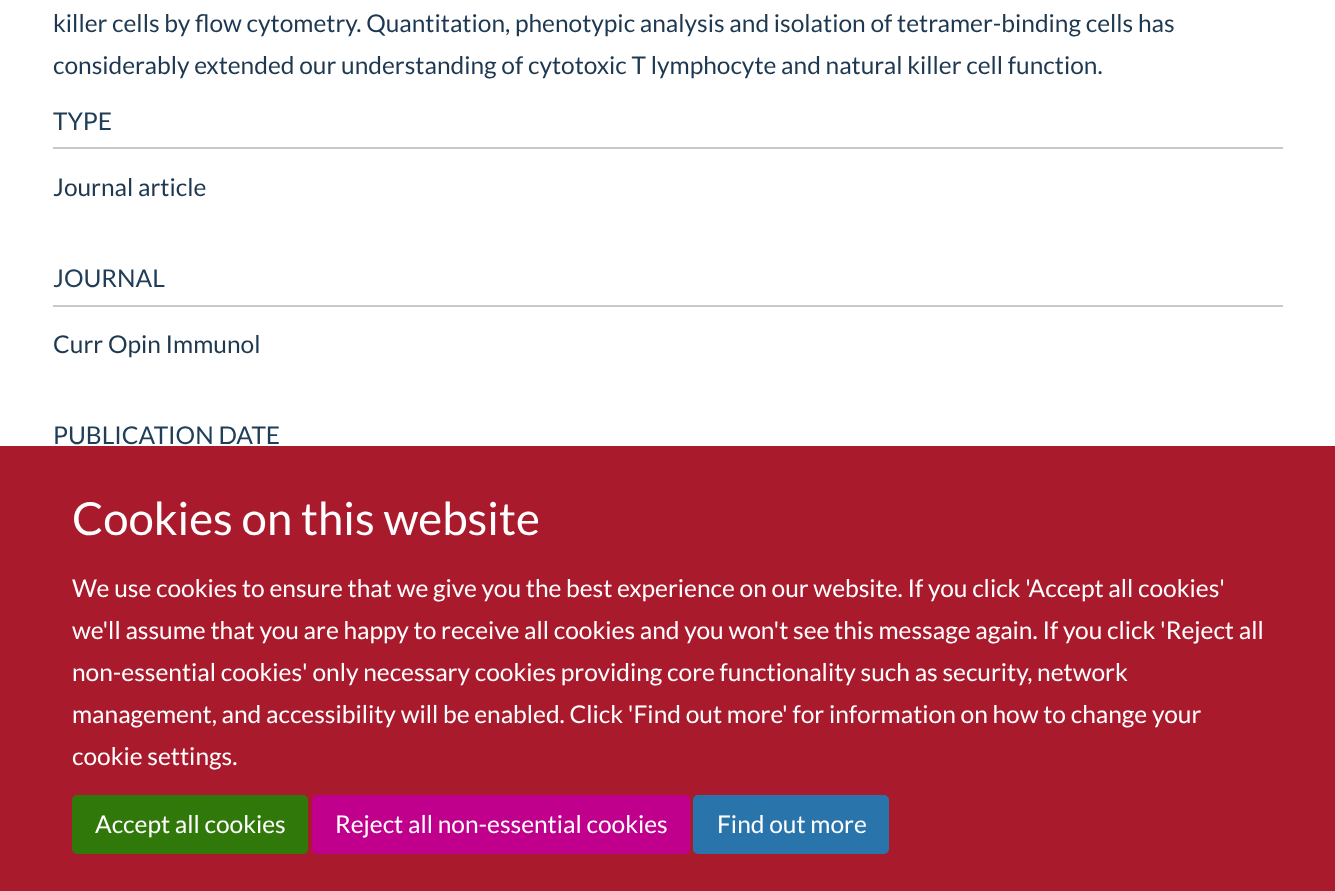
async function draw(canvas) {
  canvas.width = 1335
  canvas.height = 891
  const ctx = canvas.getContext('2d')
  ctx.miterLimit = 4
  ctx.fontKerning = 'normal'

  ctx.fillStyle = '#fff'
  ctx.fillRect(0, 0, 1335, 891)
  ctx.font = '24.5px Lato'
  ctx.fillStyle = '#1d3850'
  ctx.fillText('killer cells by flow cytometry. Quantitation, phenotypic analysis and isolation of tetramer-binding cells has', 53, 32)
  ctx.fillText('considerably extended our understanding of cytotoxic T lymphocyte and natural killer cell function.', 53, 74)
  ctx.fillStyle = '#c6cacf'
  ctx.fillRect(53, 147, 1230, 2)
  ctx.fillStyle = '#203e58'
  ctx.fillText('TYPE', 53, 130)
  ctx.fillStyle = '#1d3850'
  ctx.fillText('Journal article', 53, 196)
  ctx.fillStyle = '#c6cacf'
  ctx.fillRect(53, 305, 1230, 2)
  ctx.fillStyle = '#203e58'
  ctx.fillText('JOURNAL', 53, 287)
  ctx.fillStyle = '#1d3850'
  ctx.fillText('Curr Opin Immunol', 53, 353)
  ctx.fillStyle = '#203e58'
  ctx.fillText('PUBLICATION DATE', 53, 444)
  ctx.fillStyle = '#aa1a2d'
  ctx.fillRect(0, 446, 1335, 445)
  ctx.font = '45.5px Lato'
  ctx.fillStyle = '#fff'
  ctx.fillText('Cookies on this website', 72, 535)
  ctx.font = '24.5px Lato'
  ctx.fillText('We use cookies to ensure that we give you the best experience on our website. If you click \'Accept all cookies\'', 72, 597)
  ctx.fillText('we\'ll assume that you are happy to receive all cookies and you won\'t see this message again. If you click \'Reject all', 72, 639)
  ctx.fillText('non-essential cookies\' only necessary cookies providing core functionality such as security, network', 72, 681)
  ctx.fillText('management, and accessibility will be enabled. Click \'Find out more\' for information on how to change your', 72, 723)
  ctx.fillText('cookie settings.', 72, 765)
  ctx.fillStyle = '#31780a'
  ctx.beginPath()
  ctx.roundRect(73, 796, 234, 57, 4)
  ctx.fill()
  ctx.strokeStyle = '#31780a'
  ctx.lineWidth = 2
  ctx.stroke()
  ctx.fillStyle = '#fff'
  ctx.fillText('Accept all cookies', 95, 833)
  ctx.fillStyle = '#c0008d'
  ctx.beginPath()
  ctx.roundRect(313, 796, 376, 57, 4)
  ctx.fill()
  ctx.strokeStyle = '#c0008d'
  ctx.stroke()
  ctx.fillStyle = '#fff'
  ctx.fillText('Reject all non-essential cookies', 335, 833)
  ctx.fillStyle = '#2a74ac'
  ctx.beginPath()
  ctx.roundRect(694, 796, 194, 57, 4)
  ctx.fill()
  ctx.strokeStyle = '#2a74ac'
  ctx.stroke()
  ctx.fillStyle = '#fff'
  ctx.fillText('Find out more', 717, 833)
}

draw(document.querySelector('canvas'))
